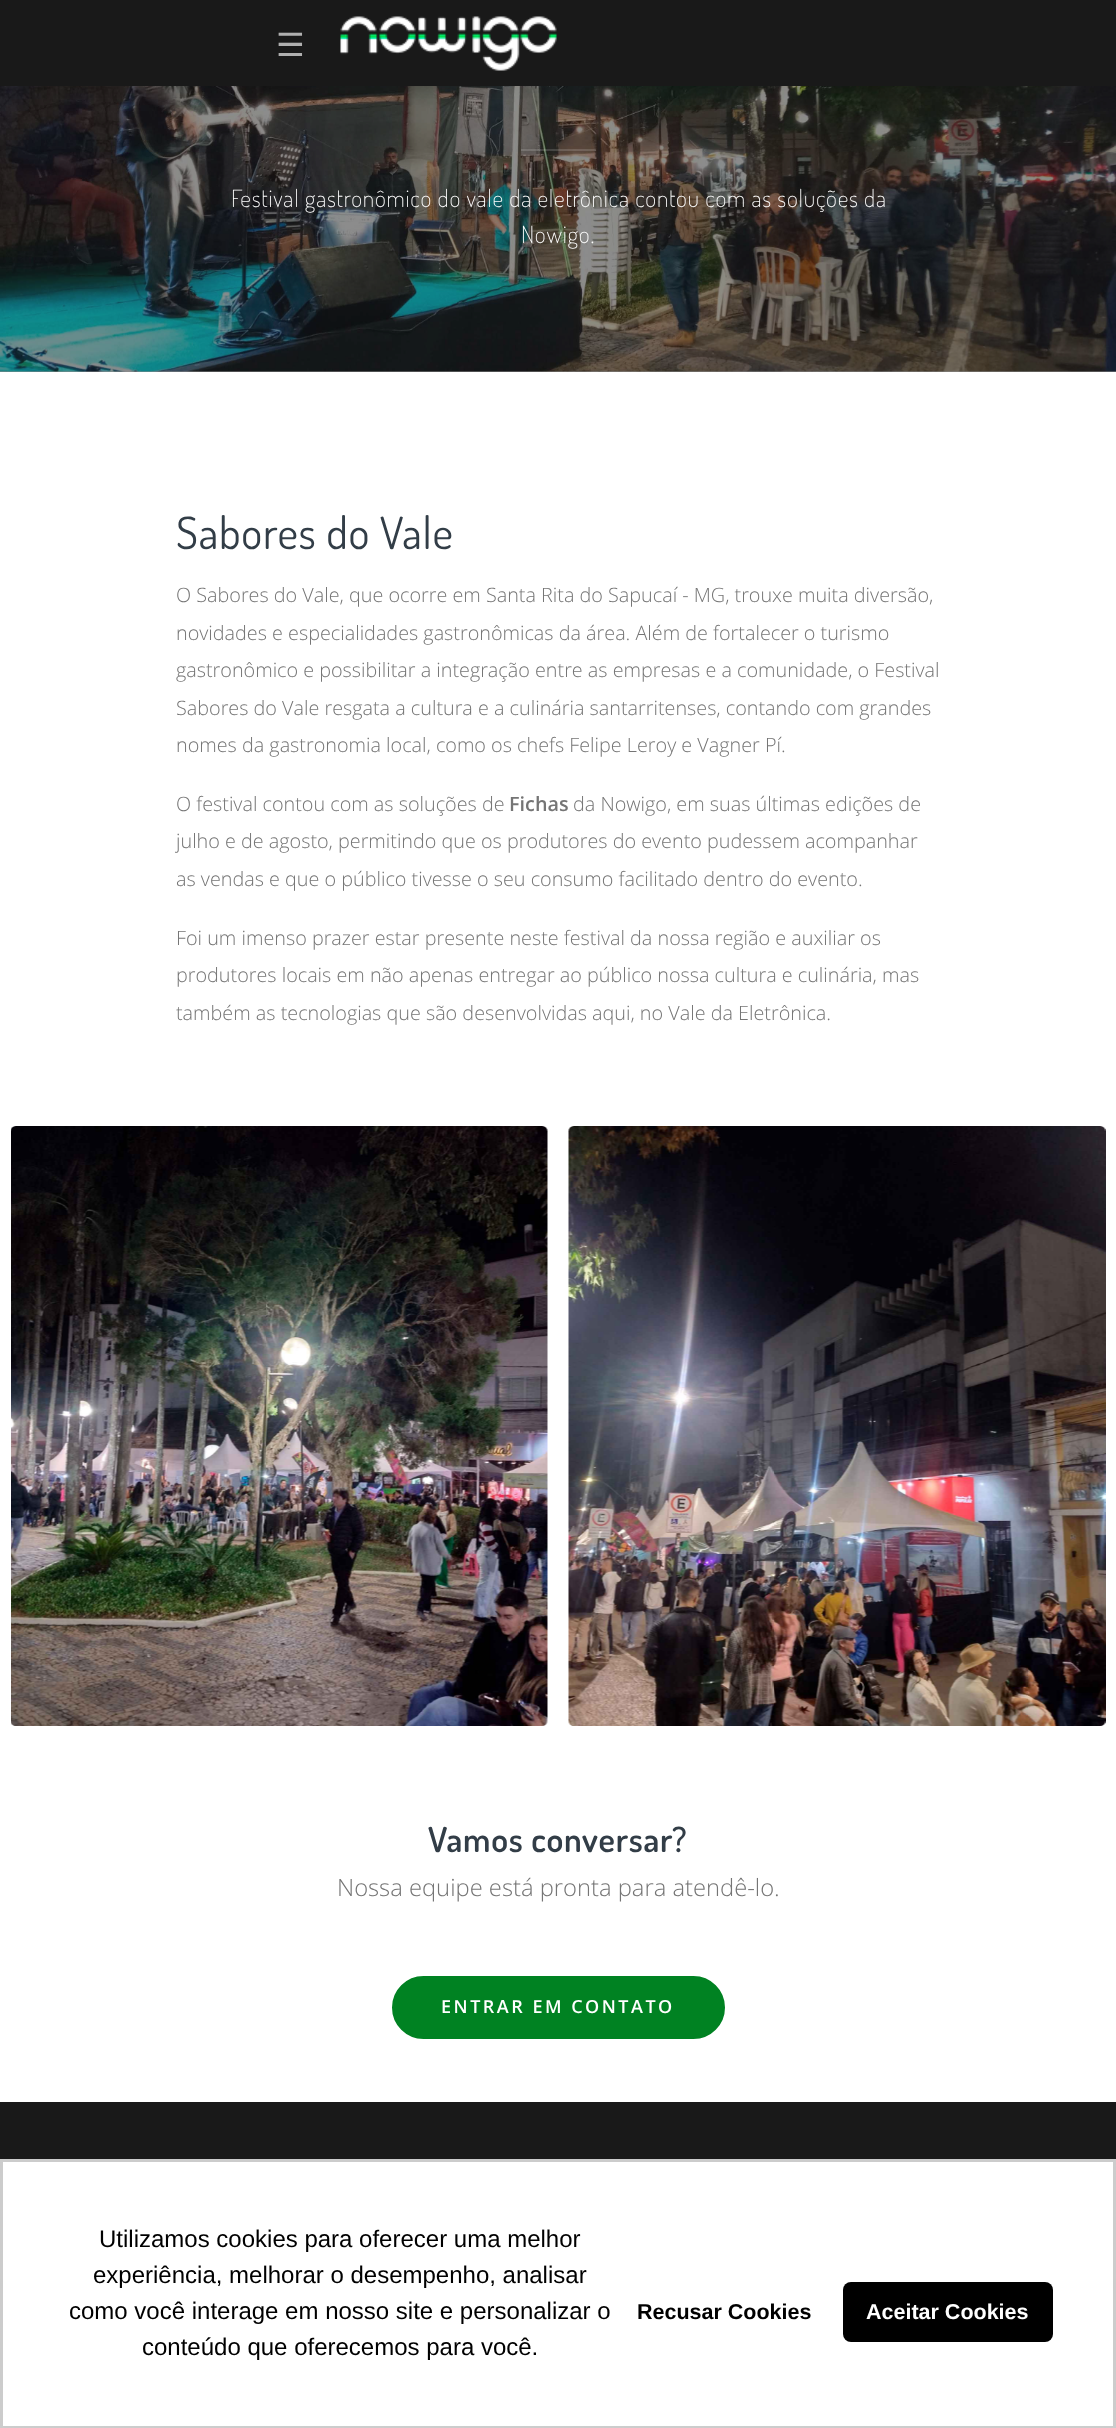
async function draw(canvas) {
  canvas.width = 1116
  canvas.height = 2428
  const ctx = canvas.getContext('2d')
  ctx.miterLimit = 4
  ctx.fontKerning = 'normal'
  async function loadImage(src) {
    const img = new Image()
    img.src = src
    await img.decode()
    return img
  }

  ctx.fillStyle = '#fff'
  ctx.fillRect(0, 0, 1116, 2428)
  ctx.fillStyle = '#8c8c8c'
  ctx.fillRect(0, 371, 1116, 1)
  ctx.drawImage(await loadImage('image1.png'), 0, 86, 1116, 286)
  ctx.fillStyle = '#0000000d'
  ctx.filter = 'blur(7px)'
  ctx.beginPath()
  ctx.rect(0, 2, 1116, 85)
  ctx.fill()
  ctx.filter = 'none'
  ctx.fillStyle = '#191919'
  ctx.fillRect(0, 0, 1116, 86)
  ctx.font = '32px DejaVu Sans'
  ctx.fillStyle = '#afafaf'
  ctx.fillText('☰', 276, 56)
  ctx.drawImage(await loadImage('image0.png'), 340, 16, 217, 55)
  ctx.fillStyle = '#ffffff26'
  ctx.fillRect(521, 149, 75, 2)
  ctx.letterSpacing = '0.75px'
  ctx.font = '200 23.75px Dosis'
  ctx.fillStyle = '#fff'
  ctx.fillText('Festival gastronômico do vale da eletrônica contou com as soluções da', 231, 207)
  ctx.fillText('Nowigo.', 521, 243)
  ctx.font = '44.5px Dosis'
  ctx.fillStyle = '#323d47'
  ctx.fillText('Sabores do Vale', 176, 549)
  ctx.letterSpacing = '0px'
  ctx.font = '300 19.8px Open Sans'
  ctx.fillStyle = '#757575'
  ctx.fillText('O Sabores do Vale, que ocorre em Santa Rita do Sapucaí - MG, trouxe muita diversão,', 176, 602)
  ctx.fillText('novidades e especialidades gastronômicas da área. Além de fortalecer o turismo', 176, 640)
  ctx.fillText('gastronômico e possibilitar a integração entre as empresas e a comunidade, o Festival', 176, 677)
  ctx.fillText('Sabores do Vale resgata a cultura e a culinária santarritenses, contando com grandes', 176, 715)
  ctx.fillText('nomes da gastronomia local, como os chefs Felipe Leroy e Vagner Pí.', 176, 752)
  ctx.fillText('O festival contou com as soluções de', 176, 811)
  ctx.font = '600 19.8px Open Sans'
  ctx.fillText('Fichas', 509, 811)
  ctx.font = '300 19.8px Open Sans'
  ctx.fillText('da Nowigo, em suas últimas edições de', 573, 811)
  ctx.fillText('julho e de agosto, permitindo que os produtores do evento pudessem acompanhar', 176, 848)
  ctx.fillText('as vendas e que o público tivesse o seu consumo facilitado dentro do evento.', 176, 886)
  ctx.fillText('Foi um imenso prazer estar presente neste festival da nossa região e auxiliar os', 176, 945)
  ctx.fillText('produtores locais em não apenas entregar ao público nossa cultura e culinária, mas', 176, 982)
  ctx.fillText('também as tecnologias que são desenvolvidas aqui, no Vale da Eletrônica.', 176, 1020)
  ctx.drawImage(await loadImage('image2.png'), 11, 1126, 537, 600)
  ctx.drawImage(await loadImage('image3.png'), 568, 1126, 538, 600)
  ctx.letterSpacing = '0.75px'
  ctx.font = '600 34.5px Dosis'
  ctx.fillStyle = '#323d47'
  ctx.fillText('Vamos conversar?', 428, 1852)
  ctx.letterSpacing = '0px'
  ctx.font = '300 23.75px Open Sans'
  ctx.fillStyle = '#757575'
  ctx.fillText('Nossa equipe está pronta para atendê-lo.', 337, 1896)
  ctx.fillStyle = '#008222'
  ctx.beginPath()
  ctx.roundRect(393, 1977, 331, 61, 30.5)
  ctx.fill()
  ctx.strokeStyle = '#008222'
  ctx.lineWidth = 2
  ctx.stroke()
  ctx.letterSpacing = '2.5px'
  ctx.font = '600 18px Open Sans'
  ctx.fillStyle = '#fff'
  ctx.fillText('ENTRAR EM CONTATO', 441, 2013)
  ctx.fillStyle = '#191919'
  ctx.fillRect(0, 2102, 1116, 57)
  ctx.strokeStyle = '#ccc'
  ctx.lineWidth = 3
  ctx.strokeRect(1.5, 2160.5, 1113, 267)
  ctx.letterSpacing = '0px'
  ctx.font = '24px Liberation Sans'
  ctx.fillStyle = '#000'
  ctx.fillText('Utilizamos cookies para oferecer uma melhor', 99, 2247)
  ctx.fillText('experiência, melhorar o desempenho, analisar', 93, 2283)
  ctx.fillText('como você interage em nosso site e personalizar o', 69, 2319)
  ctx.fillText('conteúdo que oferecemos para você.', 142, 2355)
  ctx.font = 'bold 21.5px Liberation Sans'
  ctx.fillText('Recusar Cookies', 637, 2319)
  ctx.beginPath()
  ctx.roundRect(843, 2282, 210, 60, 8)
  ctx.fill()
  ctx.fillStyle = '#fff'
  ctx.fillText('Aceitar Cookies', 866, 2319)
}

draw(document.querySelector('canvas'))
